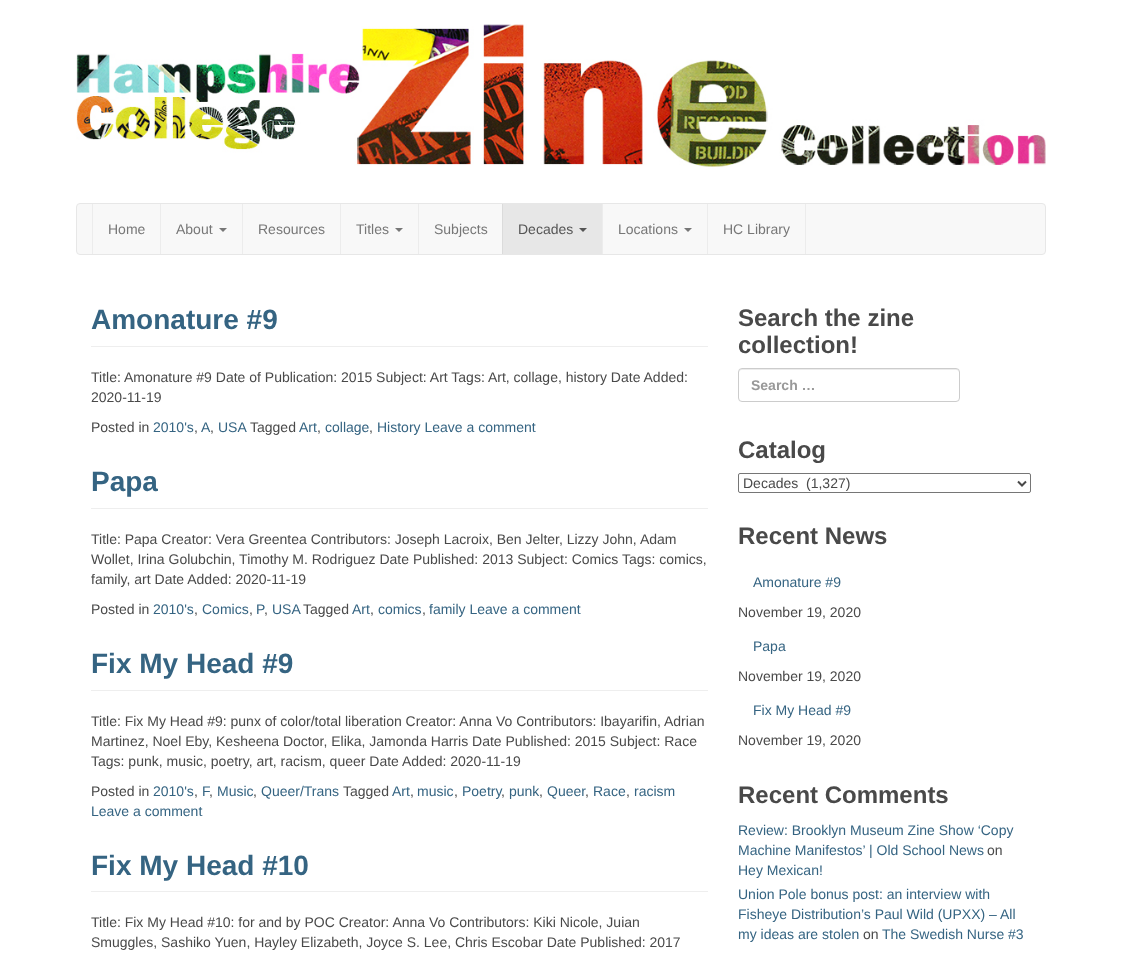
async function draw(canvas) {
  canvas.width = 1122
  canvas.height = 955
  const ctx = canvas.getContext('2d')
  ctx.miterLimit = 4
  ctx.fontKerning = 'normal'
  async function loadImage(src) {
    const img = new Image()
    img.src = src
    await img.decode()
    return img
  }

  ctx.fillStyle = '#fff'
  ctx.fillRect(0, 0, 1122, 955)
  ctx.drawImage(await loadImage('image0.png'), 76, 24, 970, 146)
  ctx.fillStyle = '#f8f8f8'
  ctx.beginPath()
  ctx.roundRect(76.5, 203.5, 969, 51, 3.5)
  ctx.fill()
  ctx.strokeStyle = '#e7e7e7'
  ctx.stroke()
  ctx.fillStyle = '#ececec'
  ctx.fillRect(805, 204, 1, 50)
  ctx.fillRect(92, 204, 1, 50)
  ctx.font = '14px Liberation Sans'
  ctx.fillStyle = '#777'
  ctx.fillText('Home', 108, 234)
  ctx.fillStyle = '#ececec'
  ctx.fillRect(160, 204, 1, 50)
  ctx.fillStyle = '#777'
  ctx.fillText('About', 176, 234)
  ctx.beginPath()
  ctx.moveTo(219, 228)
  ctx.lineTo(227, 228)
  ctx.lineTo(223, 232)
  ctx.closePath()
  ctx.fill()
  ctx.fillStyle = '#ececec'
  ctx.fillRect(242, 204, 1, 50)
  ctx.fillStyle = '#777'
  ctx.fillText('Resources', 258, 234)
  ctx.fillStyle = '#ececec'
  ctx.fillRect(340, 204, 1, 50)
  ctx.fillStyle = '#777'
  ctx.fillText('Titles', 356, 234)
  ctx.beginPath()
  ctx.moveTo(395, 228)
  ctx.lineTo(403, 228)
  ctx.lineTo(399, 232)
  ctx.closePath()
  ctx.fill()
  ctx.fillStyle = '#ececec'
  ctx.fillRect(418, 204, 1, 50)
  ctx.fillStyle = '#777'
  ctx.fillText('Subjects', 434, 234)
  ctx.fillStyle = '#e7e7e7'
  ctx.fillRect(503, 204, 99, 50)
  ctx.fillStyle = '#dbdbdb'
  ctx.fillRect(502, 204, 1, 50)
  ctx.fillStyle = '#555'
  ctx.fillText('Decades', 518, 234)
  ctx.beginPath()
  ctx.moveTo(579, 228)
  ctx.lineTo(587, 228)
  ctx.lineTo(583, 232)
  ctx.closePath()
  ctx.fill()
  ctx.fillStyle = '#ececec'
  ctx.fillRect(602, 204, 1, 50)
  ctx.fillStyle = '#777'
  ctx.fillText('Locations', 618, 234)
  ctx.beginPath()
  ctx.moveTo(684, 228)
  ctx.lineTo(692, 228)
  ctx.lineTo(688, 232)
  ctx.closePath()
  ctx.fill()
  ctx.fillStyle = '#ececec'
  ctx.fillRect(707, 204, 1, 50)
  ctx.fillStyle = '#777'
  ctx.fillText('HC Library', 723, 234)
  ctx.fillStyle = '#eee'
  ctx.fillRect(91, 346, 617, 1)
  ctx.font = 'bold 28px Liberation Sans'
  ctx.fillStyle = '#356482'
  ctx.fillText('Amonature #9', 91, 329)
  ctx.font = '14px Liberation Sans'
  ctx.fillStyle = '#494949'
  ctx.fillText('Title: Amonature #9 Date of Publication: 2015 Subject: Art Tags: Art, collage, history Date Added:', 91, 382)
  ctx.fillText('2020-11-19', 91, 402)
  ctx.fillText('Posted in', 91, 432)
  ctx.fillStyle = '#356482'
  ctx.fillText('2010\'s', 153, 432)
  ctx.fillStyle = '#494949'
  ctx.fillText(',', 194, 432)
  ctx.fillStyle = '#356482'
  ctx.fillText('A', 201, 432)
  ctx.fillStyle = '#494949'
  ctx.fillText(',', 210, 432)
  ctx.fillStyle = '#356482'
  ctx.fillText('USA', 218, 432)
  ctx.fillStyle = '#494949'
  ctx.fillText('Tagged', 250, 432)
  ctx.fillStyle = '#356482'
  ctx.fillText('Art', 299, 432)
  ctx.fillStyle = '#494949'
  ctx.fillText(',', 317, 432)
  ctx.fillStyle = '#356482'
  ctx.fillText('collage', 325, 432)
  ctx.fillStyle = '#494949'
  ctx.fillText(',', 369, 432)
  ctx.fillStyle = '#356482'
  ctx.fillText('History Leave a comment', 377, 432)
  ctx.fillStyle = '#eee'
  ctx.fillRect(91, 508, 617, 1)
  ctx.font = 'bold 28px Liberation Sans'
  ctx.fillStyle = '#356482'
  ctx.fillText('Papa', 91, 491)
  ctx.font = '14px Liberation Sans'
  ctx.fillStyle = '#494949'
  ctx.fillText('Title: Papa Creator: Vera Greentea Contributors: Joseph Lacroix, Ben Jelter, Lizzy John, Adam', 91, 544)
  ctx.fillText('Wollet, Irina Golubchin, Timothy M. Rodriguez Date Published: 2013 Subject: Comics Tags: comics,', 91, 564)
  ctx.fillText('family, art Date Added: 2020-11-19', 91, 584)
  ctx.fillText('Posted in', 91, 614)
  ctx.fillStyle = '#356482'
  ctx.fillText('2010\'s', 153, 614)
  ctx.fillStyle = '#494949'
  ctx.fillText(',', 194, 614)
  ctx.fillStyle = '#356482'
  ctx.fillText('Comics', 202, 614)
  ctx.fillStyle = '#494949'
  ctx.fillText(',', 249, 614)
  ctx.fillStyle = '#356482'
  ctx.fillText('P', 256, 614)
  ctx.fillStyle = '#494949'
  ctx.fillText(',', 264, 614)
  ctx.fillStyle = '#356482'
  ctx.fillText('USA', 272, 614)
  ctx.fillStyle = '#494949'
  ctx.fillText('Tagged', 303, 614)
  ctx.fillStyle = '#356482'
  ctx.fillText('Art', 352, 614)
  ctx.fillStyle = '#494949'
  ctx.fillText(',', 370, 614)
  ctx.fillStyle = '#356482'
  ctx.fillText('comics', 378, 614)
  ctx.fillStyle = '#494949'
  ctx.fillText(',', 422, 614)
  ctx.fillStyle = '#356482'
  ctx.fillText('family Leave a comment', 429, 614)
  ctx.fillStyle = '#eee'
  ctx.fillRect(91, 690, 617, 1)
  ctx.font = 'bold 28px Liberation Sans'
  ctx.fillStyle = '#356482'
  ctx.fillText('Fix My Head #9', 91, 673)
  ctx.font = '14px Liberation Sans'
  ctx.fillStyle = '#494949'
  ctx.fillText('Title: Fix My Head #9: punx of color/total liberation Creator: Anna Vo Contributors: Ibayarifin, Adrian', 91, 726)
  ctx.fillText('Martinez, Noel Eby, Kesheena Doctor, Elika, Jamonda Harris Date Published: 2015 Subject: Race', 91, 746)
  ctx.fillText('Tags: punk, music, poetry, art, racism, queer Date Added: 2020-11-19', 91, 766)
  ctx.fillText('Posted in', 91, 796)
  ctx.fillStyle = '#356482'
  ctx.fillText('2010\'s', 153, 796)
  ctx.fillStyle = '#494949'
  ctx.fillText(',', 194, 796)
  ctx.fillStyle = '#356482'
  ctx.fillText('F', 202, 796)
  ctx.fillStyle = '#494949'
  ctx.fillText(',', 209, 796)
  ctx.fillStyle = '#356482'
  ctx.fillText('Music', 217, 796)
  ctx.fillStyle = '#494949'
  ctx.fillText(',', 253, 796)
  ctx.fillStyle = '#356482'
  ctx.fillText('Queer/Trans', 261, 796)
  ctx.fillStyle = '#494949'
  ctx.fillText('Tagged', 343, 796)
  ctx.fillStyle = '#356482'
  ctx.fillText('Art', 392, 796)
  ctx.fillStyle = '#494949'
  ctx.fillText(',', 410, 796)
  ctx.fillStyle = '#356482'
  ctx.fillText('music', 417, 796)
  ctx.fillStyle = '#494949'
  ctx.fillText(',', 454, 796)
  ctx.fillStyle = '#356482'
  ctx.fillText('Poetry', 462, 796)
  ctx.fillText('punk', 509, 796)
  ctx.fillText('Queer', 547, 796)
  ctx.fillText('Race', 593, 796)
  ctx.fillText('racism', 634, 796)
  ctx.fillStyle = '#494949'
  ctx.fillText(',', 501, 796)
  ctx.fillText(',', 539, 796)
  ctx.fillText(',', 585, 796)
  ctx.fillText(',', 626, 796)
  ctx.fillStyle = '#356482'
  ctx.fillText('Leave a comment', 91, 816)
  ctx.fillStyle = '#eee'
  ctx.fillRect(91, 891, 617, 1)
  ctx.font = 'bold 28px Liberation Sans'
  ctx.fillStyle = '#356482'
  ctx.fillText('Fix My Head #10', 91, 875)
  ctx.font = '14px Liberation Sans'
  ctx.fillStyle = '#494949'
  ctx.fillText('Title: Fix My Head #10: for and by POC Creator: Anna Vo Contributors: Kiki Nicole, Juian', 91, 927)
  ctx.fillText('Smuggles, Sashiko Yuen, Hayley Elizabeth, Joyce S. Lee, Chris Escobar Date Published: 2017', 91, 947)
  ctx.font = 'bold 24px Liberation Sans'
  ctx.fillText('Search the zine', 738, 326)
  ctx.fillText('collection!', 738, 353)
  ctx.fillStyle = '#ececec'
  ctx.beginPath()
  ctx.moveTo(742, 370)
  ctx.lineTo(956, 370)
  ctx.bezierCurveTo(958, 370, 959, 371, 959, 373)
  ctx.lineTo(959, 372)
  ctx.bezierCurveTo(959, 370, 958, 369, 956, 369)
  ctx.lineTo(742, 369)
  ctx.bezierCurveTo(740, 369, 739, 370, 739, 372)
  ctx.lineTo(739, 373)
  ctx.bezierCurveTo(739, 371, 740, 370, 742, 370)
  ctx.closePath()
  ctx.fill()
  ctx.beginPath()
  ctx.roundRect(738.5, 368.5, 221, 33, 3.5)
  ctx.strokeStyle = '#ccc'
  ctx.stroke()
  ctx.font = 'bold 14px Liberation Sans'
  ctx.fillStyle = '#999'
  ctx.fillText('Search …', 751, 390)
  ctx.font = 'bold 24px Liberation Sans'
  ctx.fillStyle = '#494949'
  ctx.fillText('Catalog', 738, 458)
  ctx.beginPath()
  ctx.roundRect(738.5, 473.5, 292, 19, 1.5)
  ctx.strokeStyle = '#767676'
  ctx.stroke()
  ctx.beginPath()
  ctx.moveTo(1018, 481.5)
  ctx.lineTo(1022, 485.5)
  ctx.lineTo(1026, 481.5)
  ctx.strokeStyle = '#494949'
  ctx.lineWidth = 2
  ctx.stroke()
  ctx.font = '14px Liberation Sans'
  ctx.fillText('Decades  (1,327)', 743, 488)
  ctx.font = 'bold 24px Liberation Sans'
  ctx.fillText('Recent News', 738, 544)
  ctx.font = '14px Liberation Sans'
  ctx.fillStyle = '#356482'
  ctx.fillText('Amonature #9', 753, 587)
  ctx.fillStyle = '#494949'
  ctx.fillText('November 19, 2020', 738, 617)
  ctx.fillStyle = '#356482'
  ctx.fillText('Papa', 753, 651)
  ctx.fillStyle = '#494949'
  ctx.fillText('November 19, 2020', 738, 681)
  ctx.fillStyle = '#356482'
  ctx.fillText('Fix My Head #9', 753, 715)
  ctx.fillStyle = '#494949'
  ctx.fillText('November 19, 2020', 738, 745)
  ctx.font = 'bold 24px Liberation Sans'
  ctx.fillText('Recent Comments', 738, 803)
  ctx.font = '14px Liberation Sans'
  ctx.fillStyle = '#356482'
  ctx.fillText('Review: Brooklyn Museum Zine Show ‘Copy', 738, 835)
  ctx.fillText('Machine Manifestos’ | Old School News', 738, 855)
  ctx.fillStyle = '#494949'
  ctx.fillText('on', 987, 855)
  ctx.fillStyle = '#356482'
  ctx.fillText('Hey Mexican!', 738, 875)
  ctx.fillText('Union Pole bonus post: an interview with', 738, 899)
  ctx.fillText('Fisheye Distribution’s Paul Wild (UPXX) – All', 738, 919)
  ctx.fillText('my ideas are stolen', 738, 939)
  ctx.fillStyle = '#494949'
  ctx.fillText('on', 863, 939)
  ctx.fillStyle = '#356482'
  ctx.fillText('The Swedish Nurse #3', 882, 939)
}

draw(document.querySelector('canvas'))
